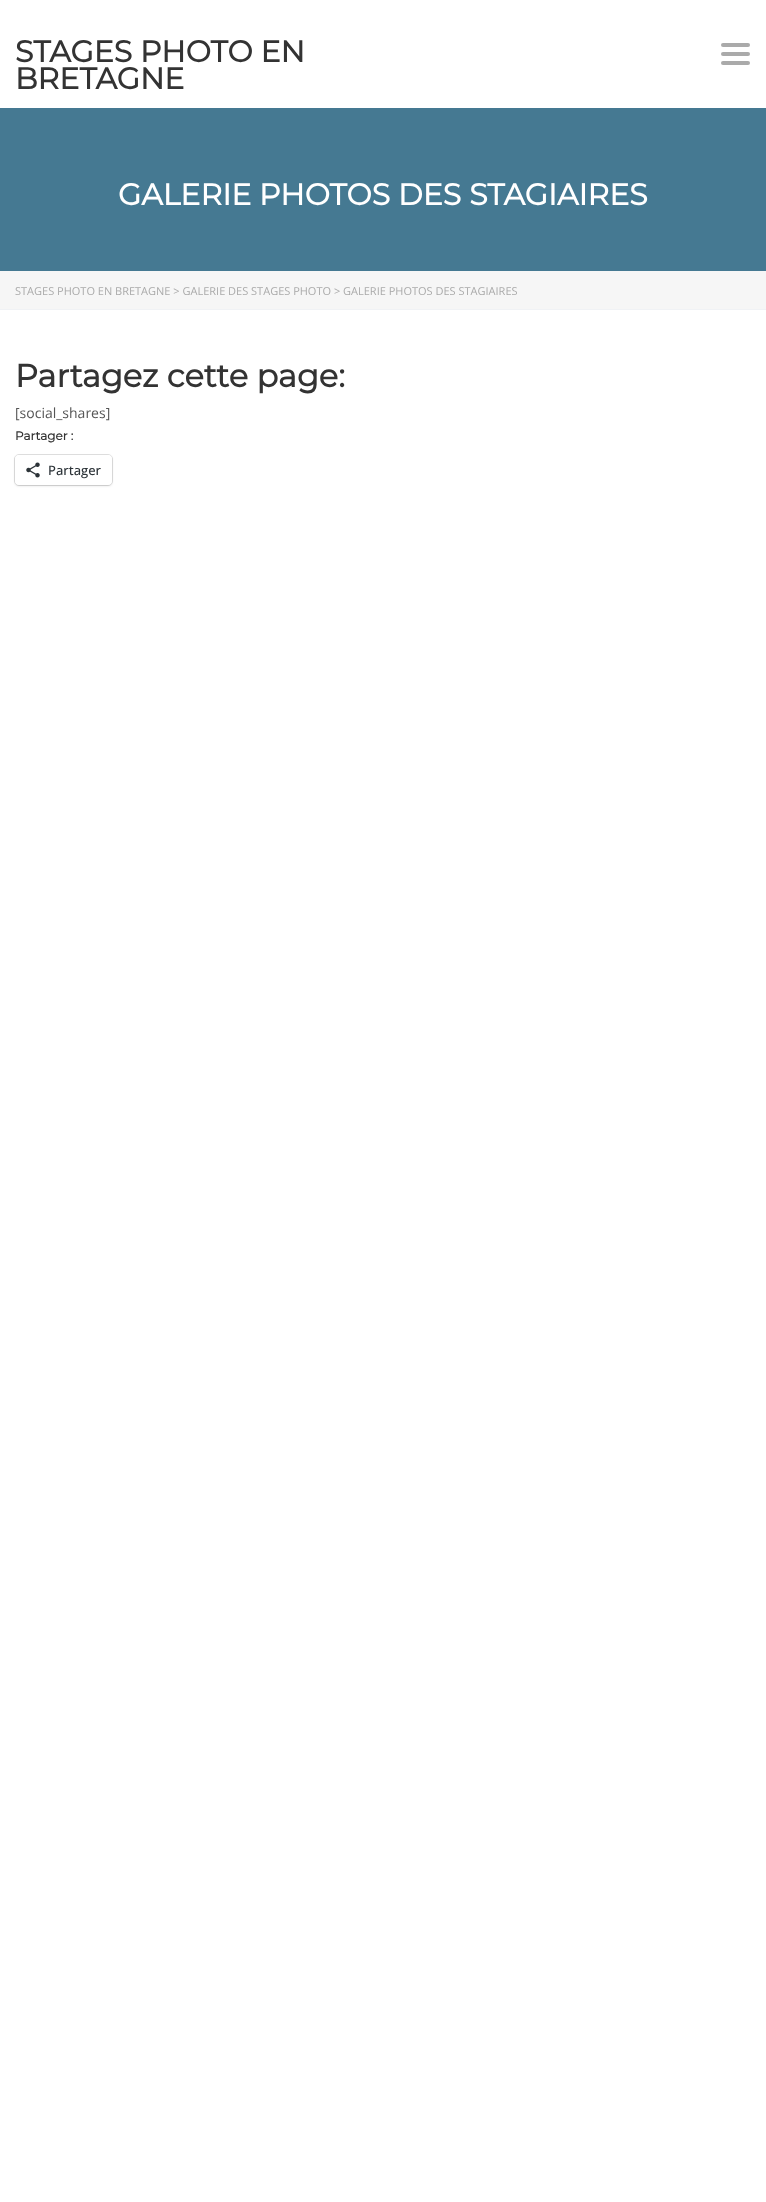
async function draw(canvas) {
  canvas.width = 766
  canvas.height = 2202
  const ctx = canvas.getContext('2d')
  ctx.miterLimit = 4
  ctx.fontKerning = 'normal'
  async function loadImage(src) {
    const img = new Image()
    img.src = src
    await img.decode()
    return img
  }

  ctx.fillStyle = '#fff'
  ctx.fillRect(0, 0, 766, 2202)
  ctx.font = 'bold 30px Montserrat'
  ctx.fillStyle = '#333'
  ctx.fillText('STAGES PHOTO EN', 15, 62)
  ctx.fillText('BRETAGNE', 15, 89)
  ctx.fillStyle = '#aaa'
  ctx.beginPath()
  ctx.roundRect(721, 43, 29, 4, 2)
  ctx.fill()
  ctx.beginPath()
  ctx.roundRect(721, 52, 29, 4, 2)
  ctx.fill()
  ctx.beginPath()
  ctx.roundRect(721, 61, 29, 4, 2)
  ctx.fill()
  ctx.fillStyle = '#457992'
  ctx.fillRect(0, 108, 766, 163)
  ctx.fillStyle = '#fff'
  ctx.fillText('GALERIE PHOTOS DES STAGIAIRES', 118, 205)
  ctx.fillStyle = '#f6f6f6'
  ctx.fillRect(0, 271, 766, 38)
  ctx.fillStyle = '#f0f2f5'
  ctx.fillRect(0, 309, 766, 1)
  ctx.font = '11px Open Sans'
  ctx.fillStyle = '#aaa'
  ctx.fillText('STAGES PHOTO EN BRETAGNE > GALERIE DES STAGES PHOTO > GALERIE PHOTOS DES STAGIAIRES', 15, 295)
  ctx.font = 'bold 32px Montserrat'
  ctx.fillStyle = '#333'
  ctx.fillText('Partagez cette page:', 15, 387)
  ctx.font = '14px Open Sans'
  ctx.fillStyle = '#555'
  ctx.fillText('[social_shares]', 15, 418)
  ctx.font = 'bold 12px Montserrat'
  ctx.fillStyle = '#333'
  ctx.fillText('Partager :', 15, 440)
  ctx.beginPath()
  ctx.roundRect(14.5, 454.5, 98, 31, 4.5)
  ctx.strokeStyle = '#e0e0e0'
  ctx.stroke()
  ctx.fillStyle = '#0000001f'
  ctx.filter = 'blur(1px)'
  ctx.beginPath()
  ctx.roundRect(15, 456, 97, 30, 4)
  ctx.fill()
  ctx.filter = 'none'
  ctx.fillStyle = '#fff'
  ctx.beginPath()
  ctx.roundRect(15, 455, 97, 30, 4)
  ctx.fill()
  ctx.drawImage(await loadImage('image0.png'), 26, 462, 14, 16)
  ctx.font = '500 13px Open Sans'
  ctx.fillStyle = '#2c3338'
  ctx.fillText('Partager', 48, 475)
}

draw(document.querySelector('canvas'))
